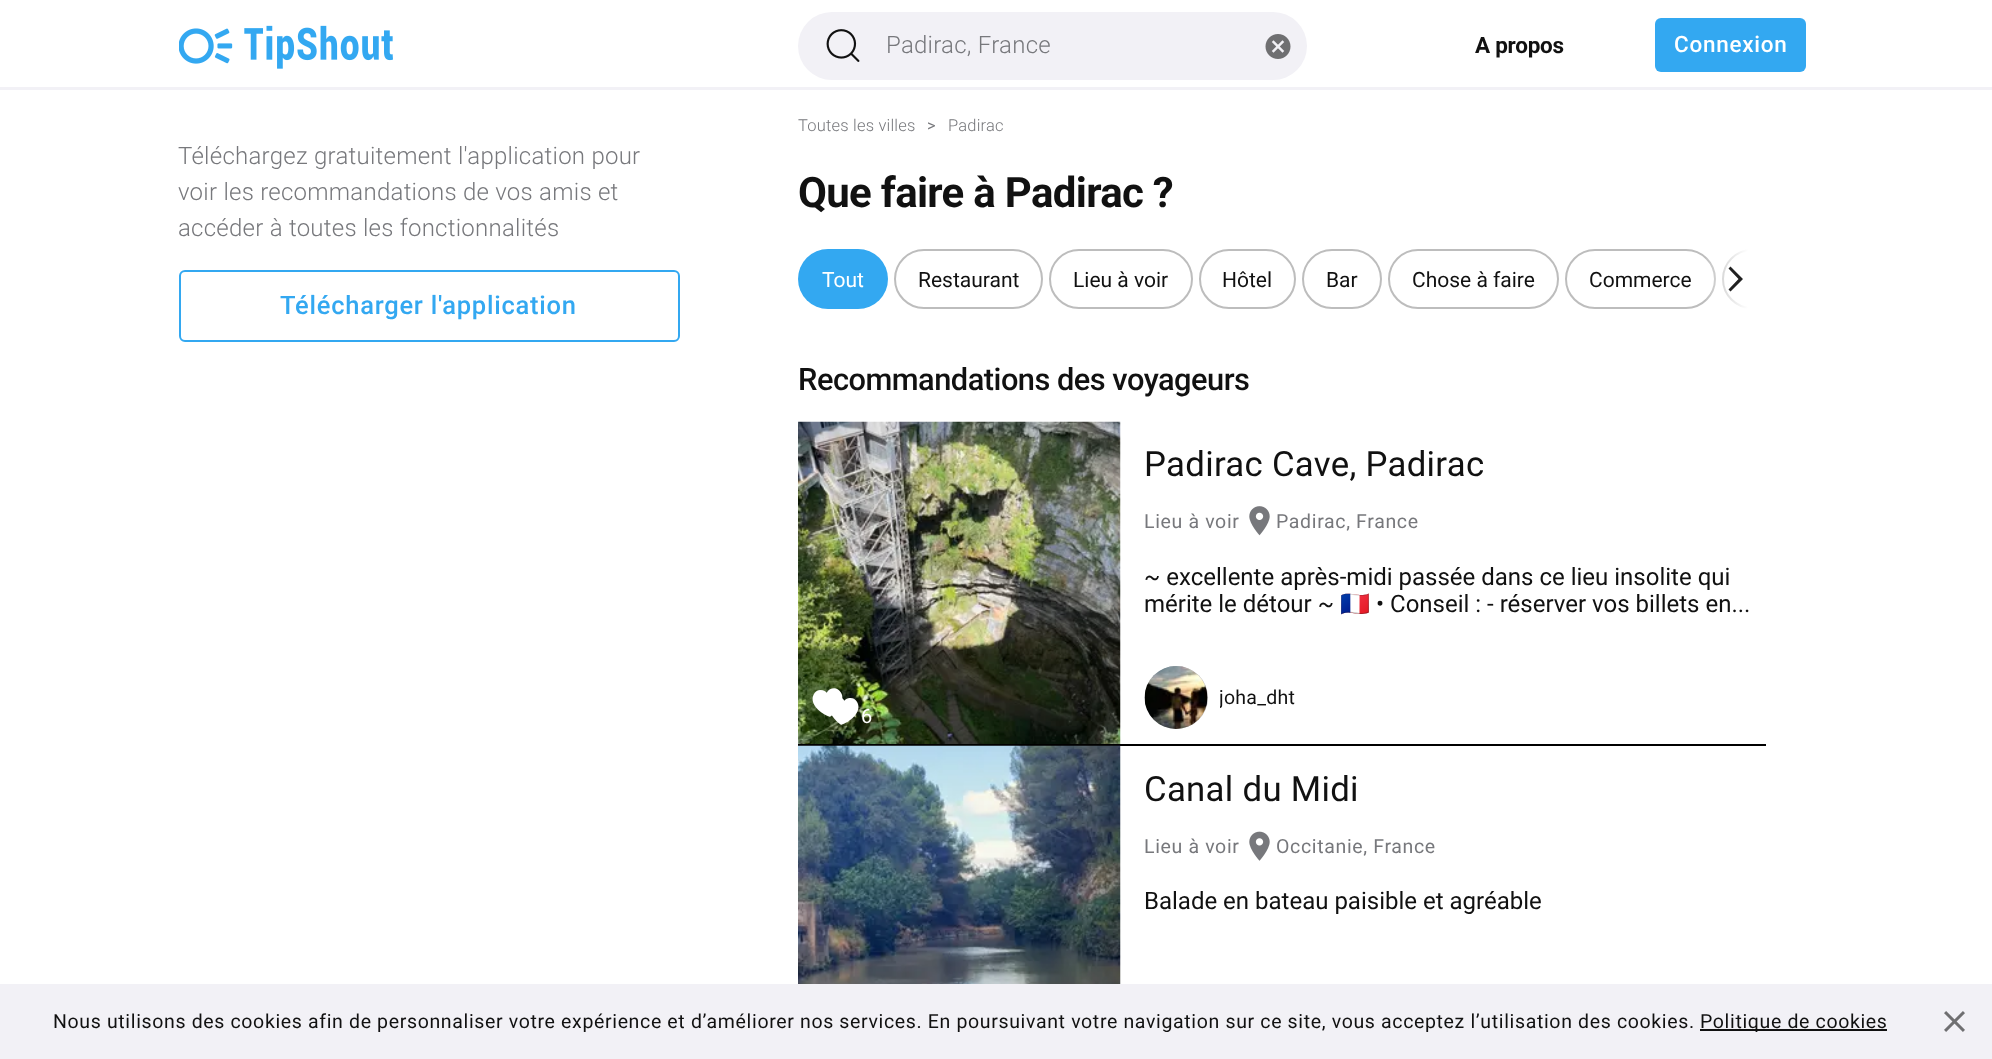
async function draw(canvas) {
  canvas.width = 1992
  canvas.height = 1059
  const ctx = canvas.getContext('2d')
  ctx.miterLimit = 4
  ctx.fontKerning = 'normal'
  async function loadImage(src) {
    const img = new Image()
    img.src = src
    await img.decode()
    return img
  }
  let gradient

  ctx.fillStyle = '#fff'
  ctx.fillRect(0, 0, 1992, 1059)
  ctx.fillStyle = '#f2f1f6'
  ctx.fillRect(0, 87, 1992, 3)
  ctx.drawImage(await loadImage('image0.png'), 179, 25, 214, 44)
  ctx.beginPath()
  ctx.roundRect(798, 12, 509, 68, 34)
  ctx.fill()
  ctx.drawImage(await loadImage('image1.png'), 826, 29, 34, 33)
  ctx.letterSpacing = '0.25px'
  ctx.font = '300 24px Roboto'
  ctx.fillStyle = '#77787c'
  ctx.fillText('Padirac, France', 886, 53)
  ctx.drawImage(await loadImage('image2.png'), 1265, 34, 26, 25)
  ctx.letterSpacing = '-0.25px'
  ctx.font = 'bold 22.5px Roboto'
  ctx.fillStyle = '#111'
  ctx.fillText('A propos', 1475, 53)
  ctx.fillStyle = '#33a8f1'
  ctx.beginPath()
  ctx.roundRect(1655, 18, 151, 54, 6)
  ctx.fill()
  ctx.letterSpacing = '0.75px'
  ctx.font = '500 22.5px Roboto'
  ctx.fillStyle = '#fff'
  ctx.fillText('Connexion', 1674, 52)
  ctx.letterSpacing = '0.25px'
  ctx.font = '300 24px Roboto'
  ctx.fillStyle = '#77787c'
  ctx.fillText('Téléchargez gratuitement l\'application pour', 178, 164)
  ctx.fillText('voir les recommandations de vos amis et', 178, 200)
  ctx.fillText('accéder à toutes les fonctionnalités', 178, 236)
  ctx.beginPath()
  ctx.roundRect(180, 271, 499, 70, 5)
  ctx.strokeStyle = '#33a8f1'
  ctx.lineWidth = 2
  ctx.stroke()
  ctx.letterSpacing = '0.75px'
  ctx.font = '500 25.5px Roboto'
  ctx.fillStyle = '#33a8f1'
  ctx.fillText('Télécharger l\'application', 280, 314)
  ctx.letterSpacing = '0.2px'
  ctx.font = '300 16.5px Roboto'
  ctx.fillStyle = '#77787c'
  ctx.fillText('Toutes les villes', 798, 131)
  ctx.letterSpacing = '0px'
  ctx.font = '16.5px Roboto'
  ctx.fillText('>', 927, 131)
  ctx.letterSpacing = '0.2px'
  ctx.font = '300 16.5px Roboto'
  ctx.fillText('Padirac', 948, 131)
  ctx.letterSpacing = '-0.7px'
  ctx.font = 'bold 42px Roboto'
  ctx.fillStyle = '#111'
  ctx.fillText('Que faire à Padirac ?', 798, 207)
  ctx.fillStyle = '#33a8f1'
  ctx.beginPath()
  ctx.roundRect(798, 249, 90, 60, 30)
  ctx.fill()
  ctx.letterSpacing = '0px'
  ctx.font = '21px Roboto'
  ctx.fillStyle = '#fff'
  ctx.fillText('Tout', 822, 287)
  ctx.beginPath()
  ctx.roundRect(895, 250, 147, 58, 29)
  ctx.strokeStyle = '#bdbdbd'
  ctx.stroke()
  ctx.fillStyle = '#111'
  ctx.fillText('Restaurant', 918, 287)
  ctx.beginPath()
  ctx.roundRect(1050, 250, 142, 58, 29)
  ctx.stroke()
  ctx.fillText('Lieu à voir', 1073, 287)
  ctx.beginPath()
  ctx.roundRect(1200, 250, 95, 58, 29)
  ctx.stroke()
  ctx.fillText('Hôtel', 1222, 287)
  ctx.beginPath()
  ctx.roundRect(1303, 250, 78, 58, 29)
  ctx.stroke()
  ctx.fillText('Bar', 1326, 287)
  ctx.beginPath()
  ctx.roundRect(1389, 250, 169, 58, 29)
  ctx.stroke()
  ctx.fillText('Chose à faire', 1412, 287)
  ctx.beginPath()
  ctx.roundRect(1566, 250, 149, 58, 29)
  ctx.stroke()
  ctx.fillText('Commerce', 1589, 287)
  ctx.save()
  ctx.beginPath()
  ctx.rect(798, 249, 968, 66)
  ctx.clip()
  ctx.beginPath()
  ctx.roundRect(1723, 250, 163, 58, 29)
  ctx.stroke()
  ctx.restore()
  gradient = ctx.createLinearGradient(1706, 279, 1766, 279)
  gradient.addColorStop(0, '#ffffff12')
  gradient.addColorStop(0.7, '#fff')
  gradient.addColorStop(1, '#fff')
  ctx.fillStyle = gradient
  ctx.fillRect(1706, 249, 60, 60)
  ctx.fillStyle = '#212121'
  ctx.beginPath()
  ctx.moveTo(1728.5, 289.5)
  ctx.lineTo(1730.5, 291.5)
  ctx.lineTo(1743, 279)
  ctx.lineTo(1730.5, 266.5)
  ctx.lineTo(1728.5, 268.5)
  ctx.lineTo(1738.5, 279)
  ctx.closePath()
  ctx.fill()
  ctx.letterSpacing = '-0.5px'
  ctx.font = '500 30.8px Roboto'
  ctx.fillStyle = '#111'
  ctx.fillText('Recommandations des voyageurs', 798, 390)
  ctx.fillStyle = '#000'
  ctx.fillRect(798, 744, 968, 2)
  ctx.letterSpacing = '0.3px'
  ctx.font = '34.75px Roboto'
  ctx.fillStyle = '#111'
  ctx.fillText('Padirac Cave, Padirac', 1144, 476)
  ctx.letterSpacing = '0.65px'
  ctx.font = '19.5px Roboto'
  ctx.fillStyle = '#77787c'
  ctx.fillText('Lieu à voir', 1144, 528)
  ctx.drawImage(await loadImage('image3.png'), 1249, 506, 21, 30)
  ctx.fillText('Padirac, France', 1276, 528)
  ctx.letterSpacing = '0px'
  ctx.font = '24px Roboto'
  ctx.fillStyle = '#111'
  ctx.fillText('~ excellente après-midi passée dans ce lieu insolite qui', 1144, 585)
  ctx.fillText('mérite le détour ~', 1144, 612)
  ctx.font = '24px Noto Color Emoji'
  ctx.fillText('🇫🇷', 1340, 612)
  ctx.font = '24px Roboto'
  ctx.fillText('• Conseil : - réserver vos billets en...', 1376, 612)
  ctx.fillStyle = '#bdbdbd'
  ctx.beginPath()
  ctx.arc(1176.5, 697.5, 31.5, 0, 2 * Math.PI)
  ctx.fill()
  ctx.drawImage(await loadImage('image4.png'), 1144, 666, 64, 63)
  ctx.save()
  ctx.beginPath()
  ctx.rect(1220, 683, 75, 30)
  ctx.clip()
  ctx.letterSpacing = '0.25px'
  ctx.font = '19.5px Roboto'
  ctx.fillStyle = '#111'
  ctx.fillText('joha_dht', 1219, 704)
  ctx.restore()
  ctx.drawImage(await loadImage('image5.png'), 798, 421, 323, 323)
  ctx.drawImage(await loadImage('image6.png'), 812, 688, 47, 37)
  ctx.font = '20px Roboto'
  ctx.fillStyle = '#fff'
  ctx.fillText('6', 861, 723)
  ctx.drawImage(await loadImage('image7.png'), 798, 745, 323, 239)
  ctx.letterSpacing = '0.3px'
  ctx.font = '34.75px Roboto'
  ctx.fillStyle = '#111'
  ctx.fillText('Canal du Midi', 1144, 801)
  ctx.letterSpacing = '0.65px'
  ctx.font = '19.5px Roboto'
  ctx.fillStyle = '#77787c'
  ctx.fillText('Lieu à voir', 1144, 853)
  ctx.drawImage(await loadImage('image8.png'), 1249, 831, 21, 30)
  ctx.fillText('Occitanie, France', 1276, 853)
  ctx.letterSpacing = '0px'
  ctx.font = '24px Roboto'
  ctx.fillStyle = '#111'
  ctx.fillText('Balade en bateau paisible et agréable', 1144, 909)
  ctx.fillStyle = '#f2f1f6'
  ctx.fillRect(0, 984, 1992, 75)
  ctx.letterSpacing = '0.65px'
  ctx.font = '19.5px Roboto'
  ctx.fillStyle = '#111'
  ctx.fillText('Nous utilisons des cookies afin de personnaliser votre expérience et d’améliorer nos services. En poursuivant votre navigation sur ce site, vous acceptez l’utilisation des cookies.', 53, 1028)
  ctx.fillRect(1700, 1029, 187, 2)
  ctx.fillText('Politique de cookies', 1700, 1028)
  ctx.drawImage(await loadImage('image9.png'), 1944, 1011, 21, 21)
}

draw(document.querySelector('canvas'))
